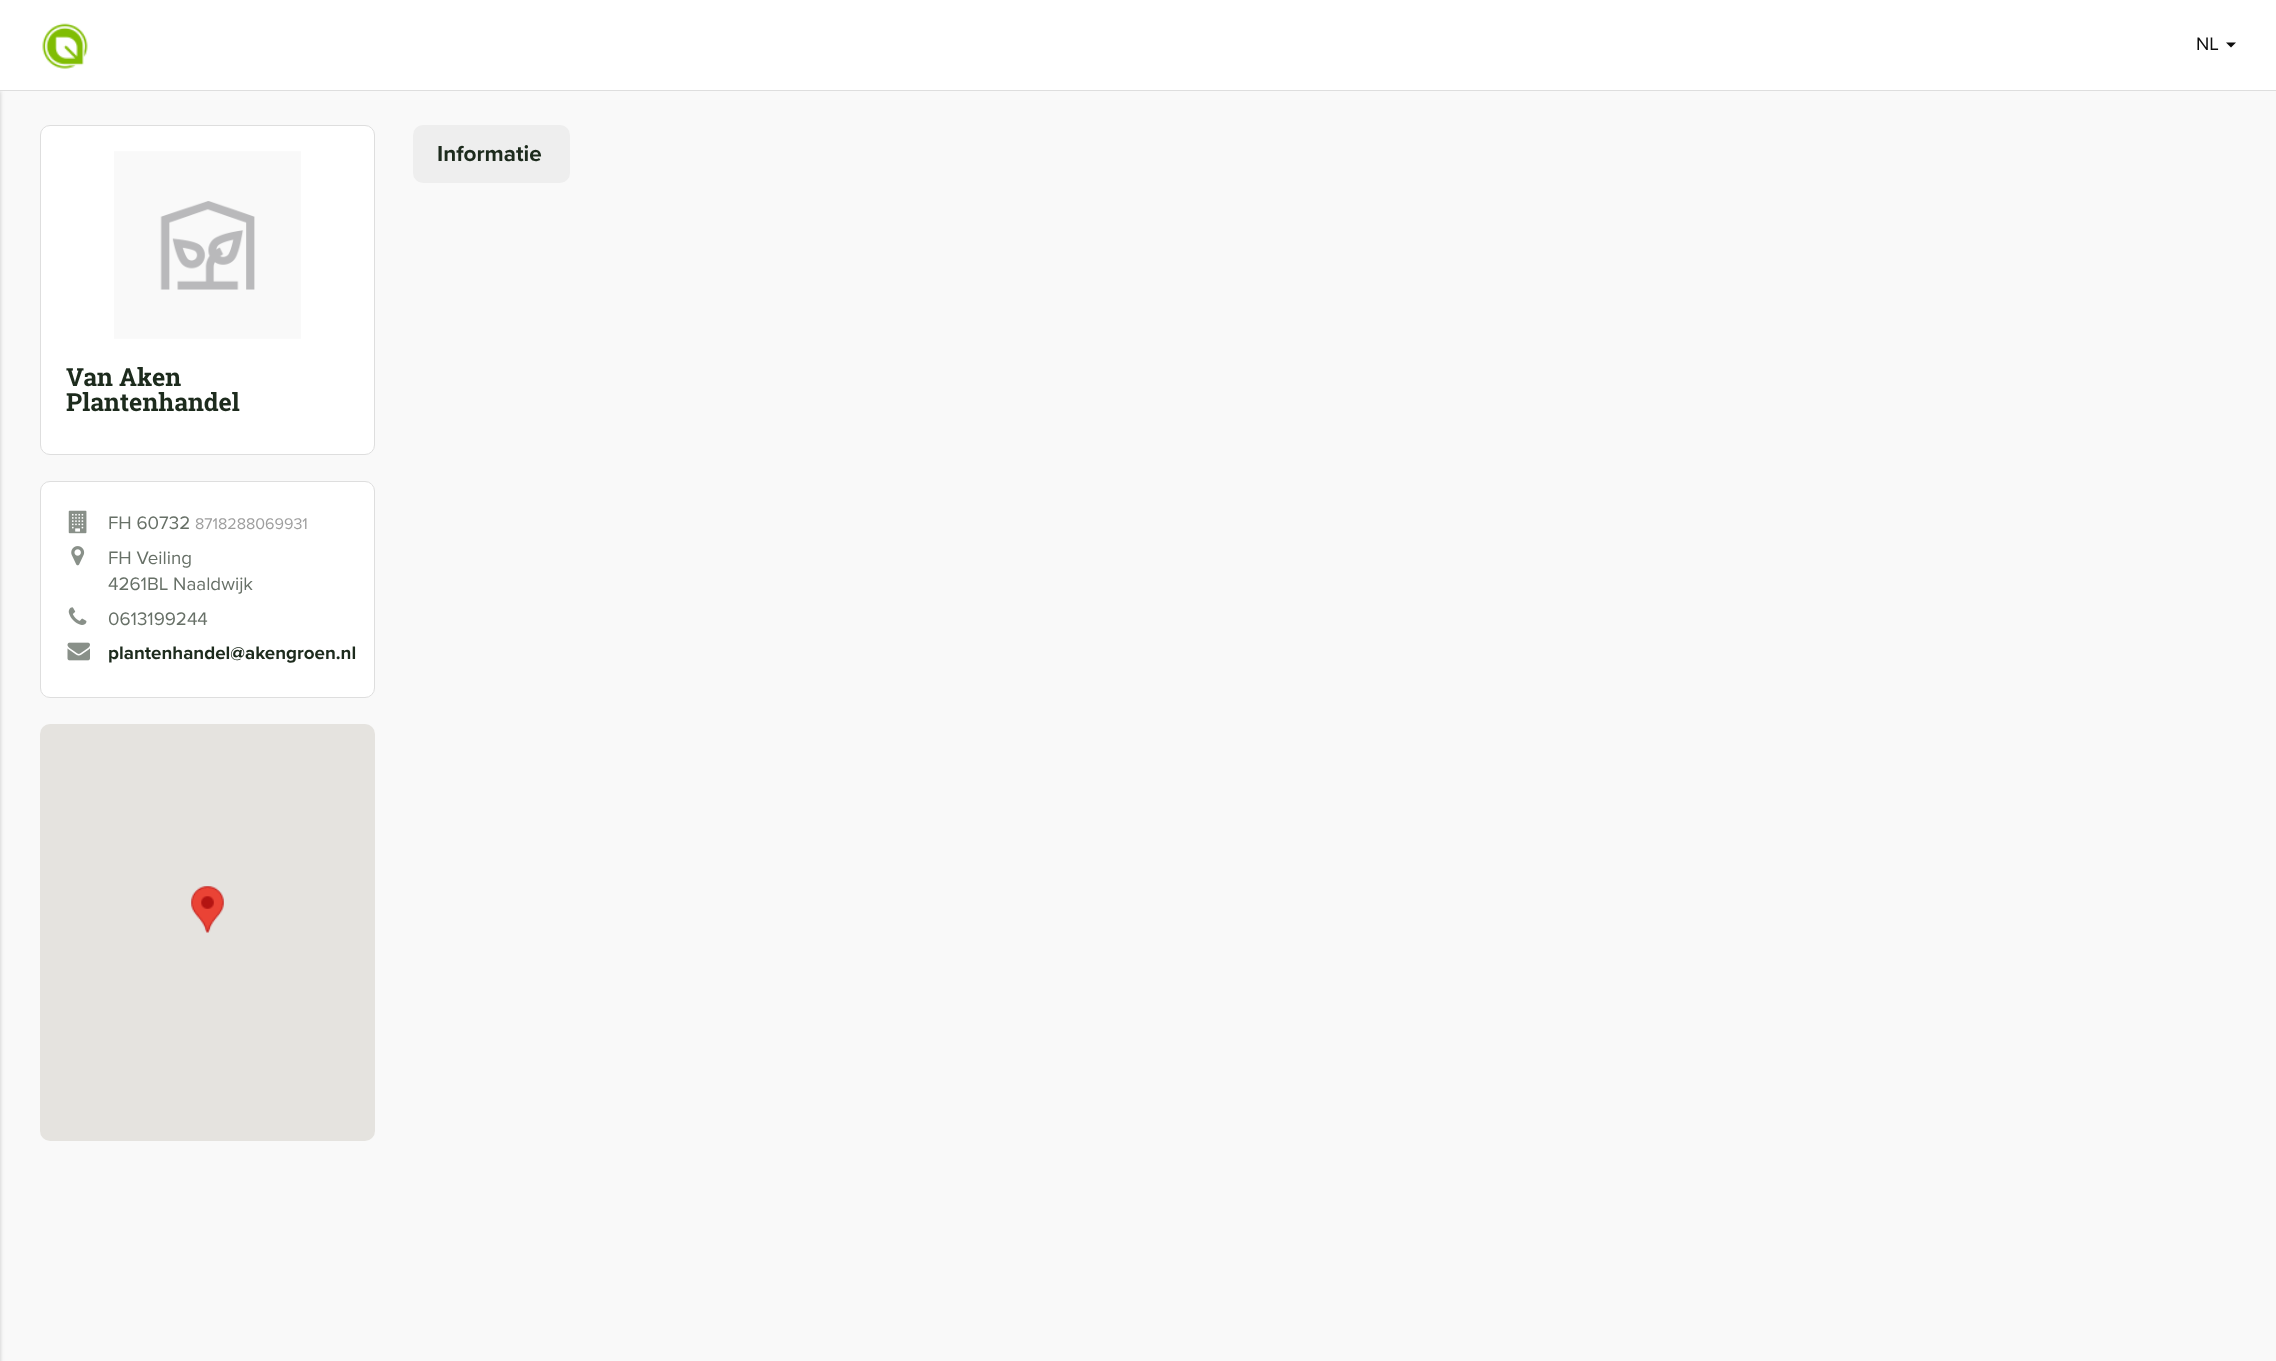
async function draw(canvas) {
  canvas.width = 2276
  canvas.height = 1361
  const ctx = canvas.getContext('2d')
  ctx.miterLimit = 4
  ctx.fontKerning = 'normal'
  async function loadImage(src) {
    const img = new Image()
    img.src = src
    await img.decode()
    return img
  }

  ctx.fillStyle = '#f9f9f9'
  ctx.fillRect(0, 0, 2276, 1361)
  ctx.fillStyle = '#32323240'
  ctx.filter = 'blur(2px)'
  ctx.beginPath()
  ctx.rect(-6, 91, 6, 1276)
  ctx.fill()
  ctx.filter = 'none'
  ctx.fillStyle = '#fff'
  ctx.fillRect(0, 0, 2276, 90)
  ctx.fillStyle = '#dedede'
  ctx.fillRect(0, 90, 2276, 1)
  ctx.drawImage(await loadImage('image0.png'), 42, 23, 46, 46)
  ctx.font = '18.75px Proxima Nova'
  ctx.fillStyle = '#0d0d0d'
  ctx.fillText('NL', 2196, 50)
  ctx.beginPath()
  ctx.moveTo(2226, 42.5)
  ctx.lineTo(2236, 42.5)
  ctx.lineTo(2231, 47.5)
  ctx.closePath()
  ctx.fill()
  ctx.fillStyle = '#eee'
  ctx.beginPath()
  ctx.roundRect(413, 125, 157, 58, 10)
  ctx.fill()
  ctx.font = 'bold 22.5px Proxima Nova'
  ctx.fillStyle = '#1d2b1d'
  ctx.fillText('Informatie', 437, 161)
  ctx.fillStyle = '#fff'
  ctx.beginPath()
  ctx.roundRect(40.5, 125.5, 334, 329, 9.5)
  ctx.fill()
  ctx.strokeStyle = '#dedede'
  ctx.stroke()
  ctx.drawImage(await loadImage('image1.png'), 114, 151, 187, 188)
  ctx.font = 'bold 25px Roboto Slab'
  ctx.fillStyle = '#1d2b1d'
  ctx.fillText('Van Aken', 66, 386)
  ctx.fillText('Plantenhandel', 66, 411)
  ctx.fillStyle = '#fff'
  ctx.beginPath()
  ctx.roundRect(40.5, 481.5, 334, 216, 9.5)
  ctx.fill()
  ctx.stroke()
  ctx.drawImage(await loadImage('image2.png'), 68, 510, 19, 24)
  ctx.font = '18.75px Proxima Nova'
  ctx.fillStyle = '#677067'
  ctx.fillText('FH 60732', 108, 529)
  ctx.font = '16px Proxima Nova'
  ctx.fillStyle = '#9e9e9e'
  ctx.fillText('8718288069931', 195, 529)
  ctx.drawImage(await loadImage('image3.png'), 71, 546, 14, 20)
  ctx.font = '18.75px Proxima Nova'
  ctx.fillStyle = '#677067'
  ctx.fillText('FH Veiling', 108, 564)
  ctx.fillText('4261BL Naaldwijk', 108, 590)
  ctx.drawImage(await loadImage('image4.png'), 68, 607, 19, 18)
  ctx.fillText('0613199244', 108, 625)
  ctx.drawImage(await loadImage('image5.png'), 67, 642, 23, 19)
  ctx.font = 'bold 18.75px Proxima Nova'
  ctx.fillStyle = '#1d2b1d'
  ctx.fillText('plantenhandel@akengroen.nl', 108, 659)
  ctx.fillStyle = '#e5e3df'
  ctx.beginPath()
  ctx.roundRect(40, 724, 335, 417, 10)
  ctx.fill()
  ctx.drawImage(await loadImage('image6.png'), 191, 886, 33, 47)
}

draw(document.querySelector('canvas'))
